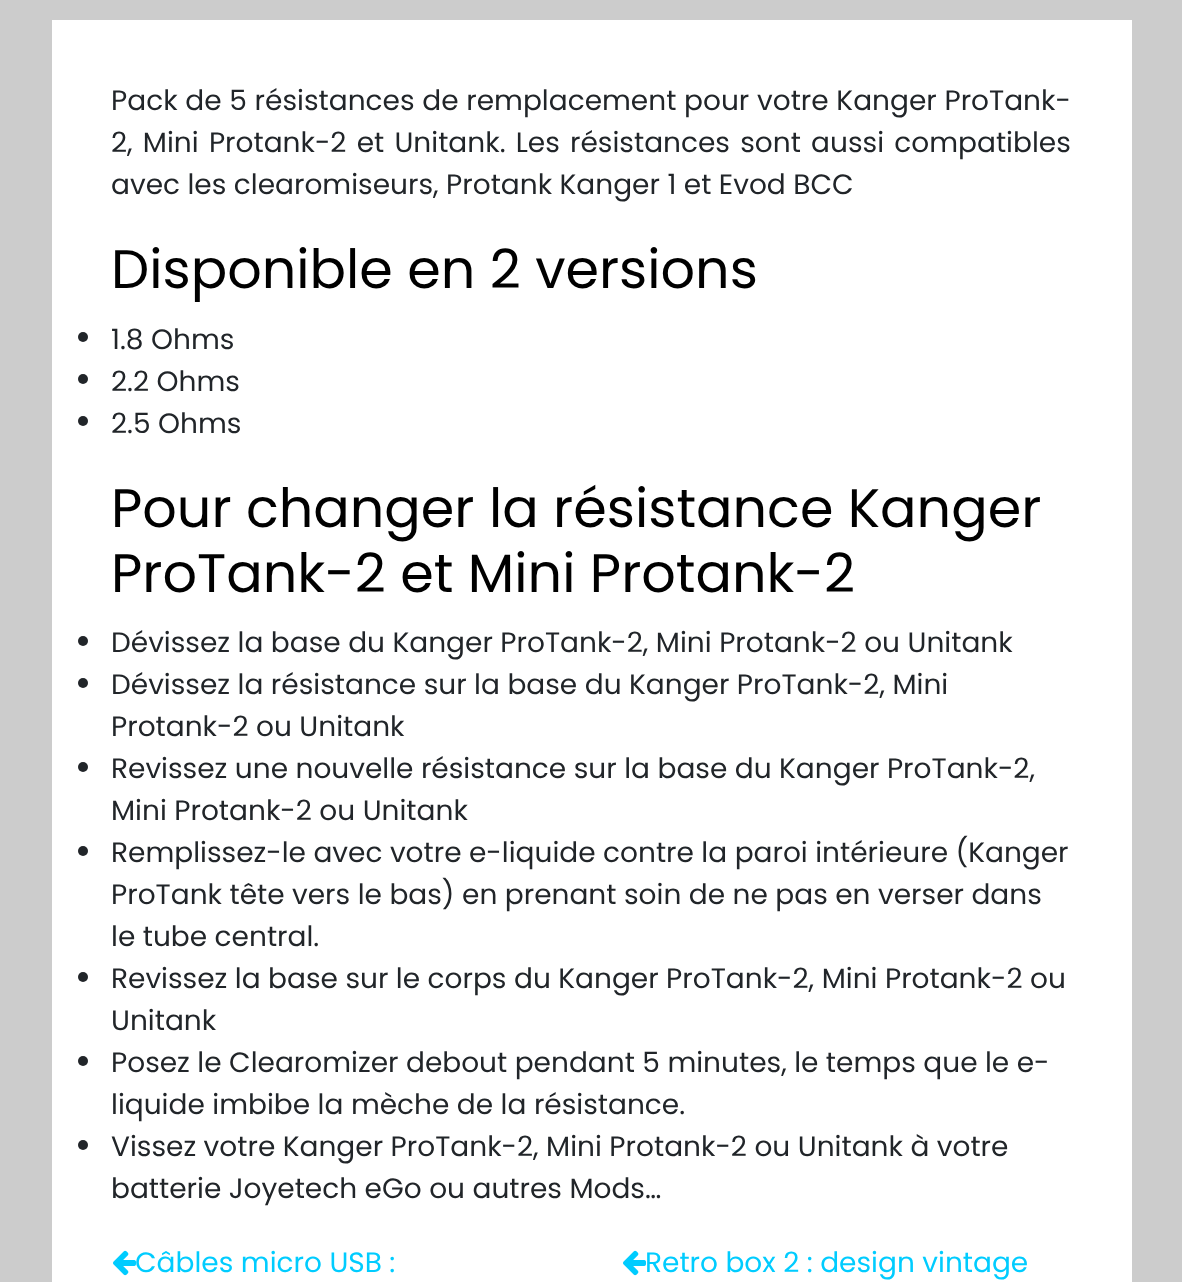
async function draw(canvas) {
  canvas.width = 1182
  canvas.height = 1282
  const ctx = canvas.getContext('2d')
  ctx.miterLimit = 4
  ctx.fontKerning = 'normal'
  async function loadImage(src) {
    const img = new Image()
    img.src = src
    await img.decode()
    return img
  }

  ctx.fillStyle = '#ccc'
  ctx.fillRect(0, 0, 1182, 1282)
  ctx.fillStyle = '#fff'
  ctx.fillRect(52, 20, 1080, 1262)
  ctx.wordSpacing = '0.25px'
  ctx.font = '28px Poppins'
  ctx.fillStyle = '#212529'
  ctx.fillText('Pack de 5 résistances de remplacement pour votre Kanger ProTank-', 111, 110)
  ctx.wordSpacing = '2.75px'
  ctx.fillText('2, Mini Protank-2 et Unitank. Les résistances sont aussi compatibles', 111, 152)
  ctx.wordSpacing = '0px'
  ctx.fillText('avec les clearomiseurs, Protank Kanger 1 et Evod BCC', 111, 194)
  ctx.font = '54px Poppins'
  ctx.fillStyle = '#000'
  ctx.fillText('Disponible en 2 versions', 111, 288)
  ctx.fillStyle = '#212529'
  ctx.beginPath()
  ctx.arc(83, 337, 5, 0, 2 * Math.PI)
  ctx.fill()
  ctx.font = '28px Poppins'
  ctx.fillText('1.8 Ohms', 111, 349)
  ctx.beginPath()
  ctx.arc(83, 379, 5, 0, 2 * Math.PI)
  ctx.fill()
  ctx.fillText('2.2 Ohms', 111, 391)
  ctx.beginPath()
  ctx.arc(83, 421, 5, 0, 2 * Math.PI)
  ctx.fill()
  ctx.fillText('2.5 Ohms', 111, 433)
  ctx.font = '54px Poppins'
  ctx.fillStyle = '#000'
  ctx.fillText('Pour changer la résistance Kanger', 111, 527)
  ctx.fillText('ProTank-2 et Mini Protank-2', 111, 592)
  ctx.fillStyle = '#212529'
  ctx.beginPath()
  ctx.arc(83, 641, 5, 0, 2 * Math.PI)
  ctx.fill()
  ctx.font = '28px Poppins'
  ctx.fillText('Dévissez la base du Kanger ProTank-2, Mini Protank-2 ou Unitank', 111, 652)
  ctx.beginPath()
  ctx.arc(83, 683, 5, 0, 2 * Math.PI)
  ctx.fill()
  ctx.fillText('Dévissez la résistance sur la base du Kanger ProTank-2, Mini', 111, 694)
  ctx.fillText('Protank-2 ou Unitank', 111, 736)
  ctx.beginPath()
  ctx.arc(83, 767, 5, 0, 2 * Math.PI)
  ctx.fill()
  ctx.fillText('Revissez une nouvelle résistance sur la base du Kanger ProTank-2,', 111, 778)
  ctx.fillText('Mini Protank-2 ou Unitank', 111, 820)
  ctx.beginPath()
  ctx.arc(83, 851, 5, 0, 2 * Math.PI)
  ctx.fill()
  ctx.fillText('Remplissez-le avec votre e-liquide contre la paroi intérieure (Kanger', 111, 862)
  ctx.fillText('ProTank tête vers le bas) en prenant soin de ne pas en verser dans', 111, 904)
  ctx.fillText('le tube central.', 111, 946)
  ctx.beginPath()
  ctx.arc(83, 977, 5, 0, 2 * Math.PI)
  ctx.fill()
  ctx.fillText('Revissez la base sur le corps du Kanger ProTank-2, Mini Protank-2 ou', 111, 988)
  ctx.fillText('Unitank', 111, 1030)
  ctx.beginPath()
  ctx.arc(83, 1061, 5, 0, 2 * Math.PI)
  ctx.fill()
  ctx.fillText('Posez le Clearomizer debout pendant 5 minutes, le temps que le e-', 111, 1072)
  ctx.fillText('liquide imbibe la mèche de la résistance.', 111, 1114)
  ctx.beginPath()
  ctx.arc(83, 1145, 5, 0, 2 * Math.PI)
  ctx.fill()
  ctx.fillText('Vissez votre Kanger ProTank-2, Mini Protank-2 ou Unitank à votre', 111, 1156)
  ctx.fillText('batterie Joyetech eGo ou autres Mods…', 111, 1198)
  ctx.drawImage(await loadImage('image0.png'), 113, 1250, 23, 26)
  ctx.fillStyle = '#0cf'
  ctx.fillText('Câbles micro USB :', 135, 1272)
  ctx.drawImage(await loadImage('image0.png'), 623, 1250, 23, 26)
  ctx.fillText('Retro box 2 : design vintage', 645, 1272)
}

draw(document.querySelector('canvas'))
